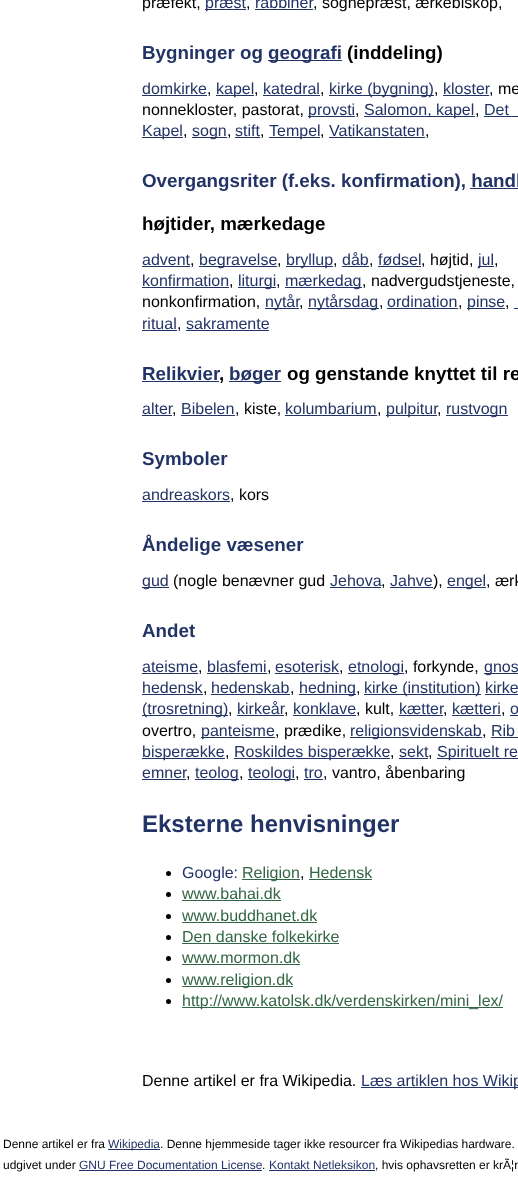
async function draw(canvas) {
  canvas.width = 518
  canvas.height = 1179
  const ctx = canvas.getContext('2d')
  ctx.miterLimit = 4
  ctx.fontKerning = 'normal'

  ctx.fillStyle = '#fff'
  ctx.fillRect(0, 0, 518, 1179)
  ctx.font = '16px Liberation Sans'
  ctx.fillStyle = '#000'
  ctx.fillText('præfekt,', 142, 8)
  ctx.fillStyle = '#236'
  ctx.fillRect(205, 9, 41, 1)
  ctx.fillText('præst', 205, 8)
  ctx.fillStyle = '#000'
  ctx.fillText(',', 246, 8)
  ctx.fillStyle = '#236'
  ctx.fillText('rabbiner', 255, 8)
  ctx.fillRect(255, 9, 58, 1)
  ctx.fillStyle = '#000'
  ctx.fillText(', sognepræst, ærkebiskop,', 313, 8)
  ctx.font = 'bold 18.75px Liberation Sans'
  ctx.fillStyle = '#236'
  ctx.fillText('Bygninger og', 142, 59)
  ctx.fillRect(268, 60, 74, 1)
  ctx.fillText('geografi', 268, 59)
  ctx.fillStyle = '#000'
  ctx.fillText('(inddeling)', 347, 59)
  ctx.font = '16px Liberation Sans'
  ctx.fillStyle = '#236'
  ctx.fillText('domkirke', 142, 94)
  ctx.fillRect(142, 95, 65, 1)
  ctx.fillStyle = '#000'
  ctx.fillText(',', 207, 94)
  ctx.fillStyle = '#236'
  ctx.fillRect(216, 95, 38, 1)
  ctx.fillText('kapel', 216, 94)
  ctx.fillStyle = '#000'
  ctx.fillText(',', 254, 94)
  ctx.fillStyle = '#236'
  ctx.fillText('katedral', 263, 94)
  ctx.fillRect(263, 95, 57, 1)
  ctx.fillStyle = '#000'
  ctx.fillText(',', 320, 94)
  ctx.fillStyle = '#236'
  ctx.fillRect(329, 95, 105, 1)
  ctx.fillText('kirke (bygning)', 329, 94)
  ctx.fillStyle = '#000'
  ctx.fillText(',', 434, 94)
  ctx.fillStyle = '#236'
  ctx.fillText('kloster', 443, 94)
  ctx.fillRect(443, 95, 46, 1)
  ctx.fillStyle = '#000'
  ctx.fillText(', me', 489, 94)
  ctx.fillText('nonnekloster, pastorat,', 142, 115)
  ctx.fillStyle = '#236'
  ctx.fillRect(308, 116, 47, 1)
  ctx.fillText('provsti', 308, 115)
  ctx.fillStyle = '#000'
  ctx.fillText(',', 355, 115)
  ctx.fillStyle = '#236'
  ctx.fillRect(364, 116, 111, 1)
  ctx.fillText('Salomon, kapel', 364, 115)
  ctx.fillStyle = '#000'
  ctx.fillText(',', 475, 115)
  ctx.fillStyle = '#236'
  ctx.fillText('Det', 484, 115)
  ctx.fillRect(484, 116, 34, 1)
  ctx.fillRect(142, 137, 41, 1)
  ctx.fillText('Kapel', 142, 136)
  ctx.fillStyle = '#000'
  ctx.fillText(',', 183, 136)
  ctx.fillStyle = '#236'
  ctx.fillRect(192, 137, 35, 1)
  ctx.fillText('sogn', 192, 136)
  ctx.fillStyle = '#000'
  ctx.fillText(',', 227, 136)
  ctx.fillStyle = '#236'
  ctx.fillText('stift', 235, 136)
  ctx.fillRect(235, 137, 25, 1)
  ctx.fillStyle = '#000'
  ctx.fillText(',', 260, 136)
  ctx.fillStyle = '#236'
  ctx.fillRect(269, 137, 51, 1)
  ctx.fillText('Tempel', 269, 136)
  ctx.fillStyle = '#000'
  ctx.fillText(',', 320, 136)
  ctx.fillStyle = '#236'
  ctx.fillText('Vatikanstaten', 329, 136)
  ctx.fillRect(329, 137, 96, 1)
  ctx.fillStyle = '#000'
  ctx.fillText(',', 425, 136)
  ctx.font = 'bold 18.75px Liberation Sans'
  ctx.fillStyle = '#236'
  ctx.fillText('Overgangsriter (f.eks. konfirmation), handl', 142, 187)
  ctx.fillRect(470, 188, 48, 1)
  ctx.fillStyle = '#000'
  ctx.fillText('højtider, mærkedage', 142, 230)
  ctx.font = '16px Liberation Sans'
  ctx.fillStyle = '#236'
  ctx.fillText('advent', 142, 265)
  ctx.fillRect(142, 266, 48, 1)
  ctx.fillStyle = '#000'
  ctx.fillText(',', 190, 265)
  ctx.fillStyle = '#236'
  ctx.fillRect(199, 266, 78, 1)
  ctx.fillText('begravelse', 199, 265)
  ctx.fillStyle = '#000'
  ctx.fillText(',', 277, 265)
  ctx.fillStyle = '#236'
  ctx.fillRect(286, 266, 47, 1)
  ctx.fillText('bryllup', 286, 265)
  ctx.fillStyle = '#000'
  ctx.fillText(',', 333, 265)
  ctx.fillStyle = '#236'
  ctx.fillText('dåb', 342, 265)
  ctx.fillRect(342, 266, 27, 1)
  ctx.fillStyle = '#000'
  ctx.fillText(',', 369, 265)
  ctx.fillStyle = '#236'
  ctx.fillText('fødsel', 378, 265)
  ctx.fillRect(378, 266, 43, 1)
  ctx.fillStyle = '#000'
  ctx.fillText(', højtid,', 421, 265)
  ctx.fillStyle = '#236'
  ctx.fillRect(478, 266, 16, 1)
  ctx.fillText('jul', 478, 265)
  ctx.fillStyle = '#000'
  ctx.fillText(',', 494, 265)
  ctx.fillStyle = '#236'
  ctx.fillText('konfirmation', 142, 286)
  ctx.fillRect(142, 287, 87, 1)
  ctx.fillStyle = '#000'
  ctx.fillText(',', 229, 286)
  ctx.fillStyle = '#236'
  ctx.fillRect(238, 287, 38, 1)
  ctx.fillText('liturgi', 238, 286)
  ctx.fillStyle = '#000'
  ctx.fillText(',', 276, 286)
  ctx.fillStyle = '#236'
  ctx.fillRect(285, 287, 77, 1)
  ctx.fillText('mærkedag', 285, 286)
  ctx.fillStyle = '#000'
  ctx.fillText(', nadvergudstjeneste,', 362, 286)
  ctx.fillText('nonkonfirmation,', 142, 307)
  ctx.fillStyle = '#236'
  ctx.fillRect(265, 308, 34, 1)
  ctx.fillText('nytår', 265, 307)
  ctx.fillStyle = '#000'
  ctx.fillText(',', 299, 307)
  ctx.fillStyle = '#236'
  ctx.fillRect(308, 308, 71, 1)
  ctx.fillText('nytårsdag', 308, 307)
  ctx.fillStyle = '#000'
  ctx.fillText(',', 379, 307)
  ctx.fillStyle = '#236'
  ctx.fillText('ordination', 387, 307)
  ctx.fillRect(387, 308, 71, 1)
  ctx.fillStyle = '#000'
  ctx.fillText(',', 458, 307)
  ctx.fillStyle = '#236'
  ctx.fillRect(467, 308, 38, 1)
  ctx.fillText('pinse', 467, 307)
  ctx.fillStyle = '#000'
  ctx.fillText(',', 505, 307)
  ctx.fillStyle = '#236'
  ctx.fillRect(514, 308, 4, 1)
  ctx.fillText('ritual', 142, 329)
  ctx.fillRect(142, 330, 35, 1)
  ctx.fillStyle = '#000'
  ctx.fillText(',', 177, 329)
  ctx.fillStyle = '#236'
  ctx.fillText('sakramente', 186, 329)
  ctx.fillRect(186, 330, 83, 1)
  ctx.font = 'bold 18.75px Liberation Sans'
  ctx.fillText('Relikvier', 142, 380)
  ctx.fillRect(142, 381, 77, 1)
  ctx.fillStyle = '#000'
  ctx.fillText(',', 219, 380)
  ctx.fillStyle = '#236'
  ctx.fillRect(229, 381, 52, 1)
  ctx.fillText('bøger', 229, 380)
  ctx.fillStyle = '#000'
  ctx.fillText('og genstande knyttet til re', 287, 380)
  ctx.font = '16px Liberation Sans'
  ctx.fillStyle = '#236'
  ctx.fillText('alter', 142, 414)
  ctx.fillRect(142, 415, 30, 1)
  ctx.fillStyle = '#000'
  ctx.fillText(',', 172, 414)
  ctx.fillStyle = '#236'
  ctx.fillText('Bibelen', 181, 414)
  ctx.fillRect(181, 415, 54, 1)
  ctx.fillStyle = '#000'
  ctx.fillText(', kiste,', 235, 414)
  ctx.fillStyle = '#236'
  ctx.fillText('kolumbarium', 285, 414)
  ctx.fillRect(285, 415, 92, 1)
  ctx.fillStyle = '#000'
  ctx.fillText(',', 377, 414)
  ctx.fillStyle = '#236'
  ctx.fillRect(386, 415, 51, 1)
  ctx.fillText('pulpitur', 386, 414)
  ctx.fillStyle = '#000'
  ctx.fillText(',', 437, 414)
  ctx.fillStyle = '#236'
  ctx.fillRect(446, 415, 62, 1)
  ctx.fillText('rustvogn', 446, 414)
  ctx.font = 'bold 18.75px Liberation Sans'
  ctx.fillText('Symboler', 142, 465)
  ctx.font = '16px Liberation Sans'
  ctx.fillText('andreaskors', 142, 500)
  ctx.fillRect(142, 501, 88, 1)
  ctx.fillStyle = '#000'
  ctx.fillText(', kors', 230, 500)
  ctx.font = 'bold 18.75px Liberation Sans'
  ctx.fillStyle = '#236'
  ctx.fillText('Åndelige væsener', 142, 551)
  ctx.fillRect(142, 587, 27, 1)
  ctx.font = '16px Liberation Sans'
  ctx.fillText('gud', 142, 586)
  ctx.fillStyle = '#000'
  ctx.fillText('(nogle benævner gud', 173, 586)
  ctx.fillStyle = '#236'
  ctx.fillText('Jehova', 330, 586)
  ctx.fillRect(330, 587, 51, 1)
  ctx.fillStyle = '#000'
  ctx.fillText(',', 381, 586)
  ctx.fillStyle = '#236'
  ctx.fillText('Jahve', 390, 586)
  ctx.fillRect(390, 587, 43, 1)
  ctx.fillStyle = '#000'
  ctx.fillText('),', 433, 586)
  ctx.fillStyle = '#236'
  ctx.fillRect(447, 587, 39, 1)
  ctx.fillText('engel', 447, 586)
  ctx.fillStyle = '#000'
  ctx.fillText(', ærk', 486, 586)
  ctx.font = 'bold 18.75px Liberation Sans'
  ctx.fillStyle = '#236'
  ctx.fillText('Andet', 142, 637)
  ctx.font = '16px Liberation Sans'
  ctx.fillText('ateisme', 142, 672)
  ctx.fillRect(142, 673, 56, 1)
  ctx.fillStyle = '#000'
  ctx.fillText(',', 198, 672)
  ctx.fillStyle = '#236'
  ctx.fillText('blasfemi', 207, 672)
  ctx.fillRect(207, 673, 60, 1)
  ctx.fillStyle = '#000'
  ctx.fillText(',', 267, 672)
  ctx.fillStyle = '#236'
  ctx.fillText('esoterisk', 275, 672)
  ctx.fillRect(275, 673, 64, 1)
  ctx.fillStyle = '#000'
  ctx.fillText(',', 339, 672)
  ctx.fillStyle = '#236'
  ctx.fillRect(348, 673, 56, 1)
  ctx.fillText('etnologi', 348, 672)
  ctx.fillStyle = '#000'
  ctx.fillText(', forkynde,', 404, 672)
  ctx.fillStyle = '#236'
  ctx.fillRect(484, 673, 34, 1)
  ctx.fillText('gnos', 484, 672)
  ctx.fillText('hedensk', 142, 693)
  ctx.fillRect(142, 694, 61, 1)
  ctx.fillStyle = '#000'
  ctx.fillText(',', 203, 693)
  ctx.fillStyle = '#236'
  ctx.fillText('hedenskab', 211, 693)
  ctx.fillRect(211, 694, 79, 1)
  ctx.fillStyle = '#000'
  ctx.fillText(',', 290, 693)
  ctx.fillStyle = '#236'
  ctx.fillRect(299, 694, 57, 1)
  ctx.fillText('hedning', 299, 693)
  ctx.fillStyle = '#000'
  ctx.fillText(',', 356, 693)
  ctx.fillStyle = '#236'
  ctx.fillRect(364, 694, 117, 1)
  ctx.fillText('kirke (institution) kirke', 364, 693)
  ctx.fillRect(142, 715, 86, 1)
  ctx.fillText('(trosretning)', 142, 714)
  ctx.fillRect(485, 694, 33, 1)
  ctx.fillStyle = '#000'
  ctx.fillText(',', 228, 714)
  ctx.fillStyle = '#236'
  ctx.fillText('kirkeår', 237, 714)
  ctx.fillRect(237, 715, 47, 1)
  ctx.fillStyle = '#000'
  ctx.fillText(',', 284, 714)
  ctx.fillStyle = '#236'
  ctx.fillText('konklave', 293, 714)
  ctx.fillRect(293, 715, 63, 1)
  ctx.fillStyle = '#000'
  ctx.fillText(', kult,', 356, 714)
  ctx.fillStyle = '#236'
  ctx.fillText('kætter', 399, 714)
  ctx.fillRect(399, 715, 44, 1)
  ctx.fillStyle = '#000'
  ctx.fillText(',', 443, 714)
  ctx.fillStyle = '#236'
  ctx.fillText('kætteri', 452, 714)
  ctx.fillRect(452, 715, 49, 1)
  ctx.fillStyle = '#000'
  ctx.fillText(',', 501, 714)
  ctx.fillStyle = '#236'
  ctx.fillText('o', 510, 714)
  ctx.fillRect(510, 715, 8, 1)
  ctx.fillStyle = '#000'
  ctx.fillText('overtro,', 142, 736)
  ctx.fillStyle = '#236'
  ctx.fillRect(201, 737, 74, 1)
  ctx.fillText('panteisme', 201, 736)
  ctx.fillStyle = '#000'
  ctx.fillText(', prædike,', 275, 736)
  ctx.fillStyle = '#236'
  ctx.fillRect(350, 737, 132, 1)
  ctx.fillText('religionsvidenskab', 350, 736)
  ctx.fillStyle = '#000'
  ctx.fillText(',', 482, 736)
  ctx.fillStyle = '#236'
  ctx.fillText('Rib', 491, 736)
  ctx.fillRect(491, 737, 27, 1)
  ctx.fillRect(142, 758, 83, 1)
  ctx.fillText('bisperække', 142, 757)
  ctx.fillStyle = '#000'
  ctx.fillText(',', 225, 757)
  ctx.fillStyle = '#236'
  ctx.fillRect(234, 758, 156, 1)
  ctx.fillText('Roskildes bisperække', 234, 757)
  ctx.fillStyle = '#000'
  ctx.fillText(',', 390, 757)
  ctx.fillStyle = '#236'
  ctx.fillText('sekt', 399, 757)
  ctx.fillRect(399, 758, 29, 1)
  ctx.fillStyle = '#000'
  ctx.fillText(',', 428, 757)
  ctx.fillStyle = '#236'
  ctx.fillRect(437, 758, 81, 1)
  ctx.fillText('Spirituelt re', 437, 757)
  ctx.fillText('emner', 142, 778)
  ctx.fillRect(142, 779, 44, 1)
  ctx.fillStyle = '#000'
  ctx.fillText(',', 186, 778)
  ctx.fillStyle = '#236'
  ctx.fillRect(195, 779, 44, 1)
  ctx.fillText('teolog', 195, 778)
  ctx.fillStyle = '#000'
  ctx.fillText(',', 239, 778)
  ctx.fillStyle = '#236'
  ctx.fillRect(248, 779, 47, 1)
  ctx.fillText('teologi', 248, 778)
  ctx.fillStyle = '#000'
  ctx.fillText(',', 295, 778)
  ctx.fillStyle = '#236'
  ctx.fillText('tro', 304, 778)
  ctx.fillRect(304, 779, 19, 1)
  ctx.fillStyle = '#000'
  ctx.fillText(', vantro, åbenbaring', 323, 778)
  ctx.font = 'bold 24px Liberation Sans'
  ctx.fillStyle = '#236'
  ctx.fillText('Eksterne henvisninger', 142, 832)
  ctx.fillStyle = '#000'
  ctx.beginPath()
  ctx.arc(168.5, 873.5, 2.5, 0, 2 * Math.PI)
  ctx.fill()
  ctx.font = '16px Liberation Sans'
  ctx.fillStyle = '#236'
  ctx.fillText('Google:', 182, 878)
  ctx.fillStyle = '#364'
  ctx.fillRect(242, 879, 58, 1)
  ctx.fillText('Religion', 242, 878)
  ctx.fillText('Hedensk', 309, 878)
  ctx.fillRect(309, 879, 63, 1)
  ctx.fillStyle = '#000'
  ctx.fillText(',', 300, 878)
  ctx.beginPath()
  ctx.arc(168.5, 894.5, 2.5, 0, 2 * Math.PI)
  ctx.fill()
  ctx.fillStyle = '#364'
  ctx.fillText('www.bahai.dk', 182, 899)
  ctx.fillRect(182, 900, 99, 1)
  ctx.fillStyle = '#000'
  ctx.beginPath()
  ctx.arc(168.5, 916.5, 2.5, 0, 2 * Math.PI)
  ctx.fill()
  ctx.fillStyle = '#364'
  ctx.fillText('www.buddhanet.dk', 182, 921)
  ctx.fillRect(182, 922, 135, 1)
  ctx.fillStyle = '#000'
  ctx.beginPath()
  ctx.arc(168.5, 937.5, 2.5, 0, 2 * Math.PI)
  ctx.fill()
  ctx.fillStyle = '#364'
  ctx.fillText('Den danske folkekirke', 182, 942)
  ctx.fillRect(182, 943, 157, 1)
  ctx.fillStyle = '#000'
  ctx.beginPath()
  ctx.arc(168.5, 958.5, 2.5, 0, 2 * Math.PI)
  ctx.fill()
  ctx.fillStyle = '#364'
  ctx.fillText('www.mormon.dk', 182, 963)
  ctx.fillRect(182, 964, 118, 1)
  ctx.fillStyle = '#000'
  ctx.beginPath()
  ctx.arc(168.5, 980.5, 2.5, 0, 2 * Math.PI)
  ctx.fill()
  ctx.fillStyle = '#364'
  ctx.fillRect(182, 986, 111, 1)
  ctx.fillText('www.religion.dk', 182, 985)
  ctx.fillStyle = '#000'
  ctx.beginPath()
  ctx.arc(168.5, 1001.5, 2.5, 0, 2 * Math.PI)
  ctx.fill()
  ctx.fillStyle = '#364'
  ctx.fillRect(182, 1007, 321, 1)
  ctx.fillText('http://www.katolsk.dk/verdenskirken/mini_lex/', 182, 1006)
  ctx.fillStyle = '#000'
  ctx.fillText('Denne artikel er fra Wikipedia.', 142, 1086)
  ctx.fillStyle = '#236'
  ctx.fillRect(361, 1087, 157, 1)
  ctx.fillText('Læs artiklen hos Wikip', 361, 1086)
  ctx.font = '12px Liberation Sans'
  ctx.fillStyle = '#000'
  ctx.fillText('Denne artikel er fra', 3, 1148)
  ctx.fillStyle = '#236'
  ctx.fillRect(108, 1149, 52, 1)
  ctx.fillText('Wikipedia', 108, 1148)
  ctx.fillStyle = '#000'
  ctx.fillText('. Denne hjemmeside tager ikke resourcer fra Wikipedias hardware.', 160, 1148)
  ctx.fillText('udgivet under', 3, 1169)
  ctx.fillStyle = '#236'
  ctx.fillText('GNU Free Documentation License', 79, 1169)
  ctx.fillStyle = '#000'
  ctx.fillText('.', 262, 1169)
  ctx.fillStyle = '#236'
  ctx.fillRect(79, 1170, 183, 1)
  ctx.fillRect(269, 1170, 106, 1)
  ctx.fillText('Kontakt Netleksikon', 269, 1169)
  ctx.fillStyle = '#000'
  ctx.fillText(', hvis ophavsretten er krÃ¦n', 375, 1169)
}

draw(document.querySelector('canvas'))
